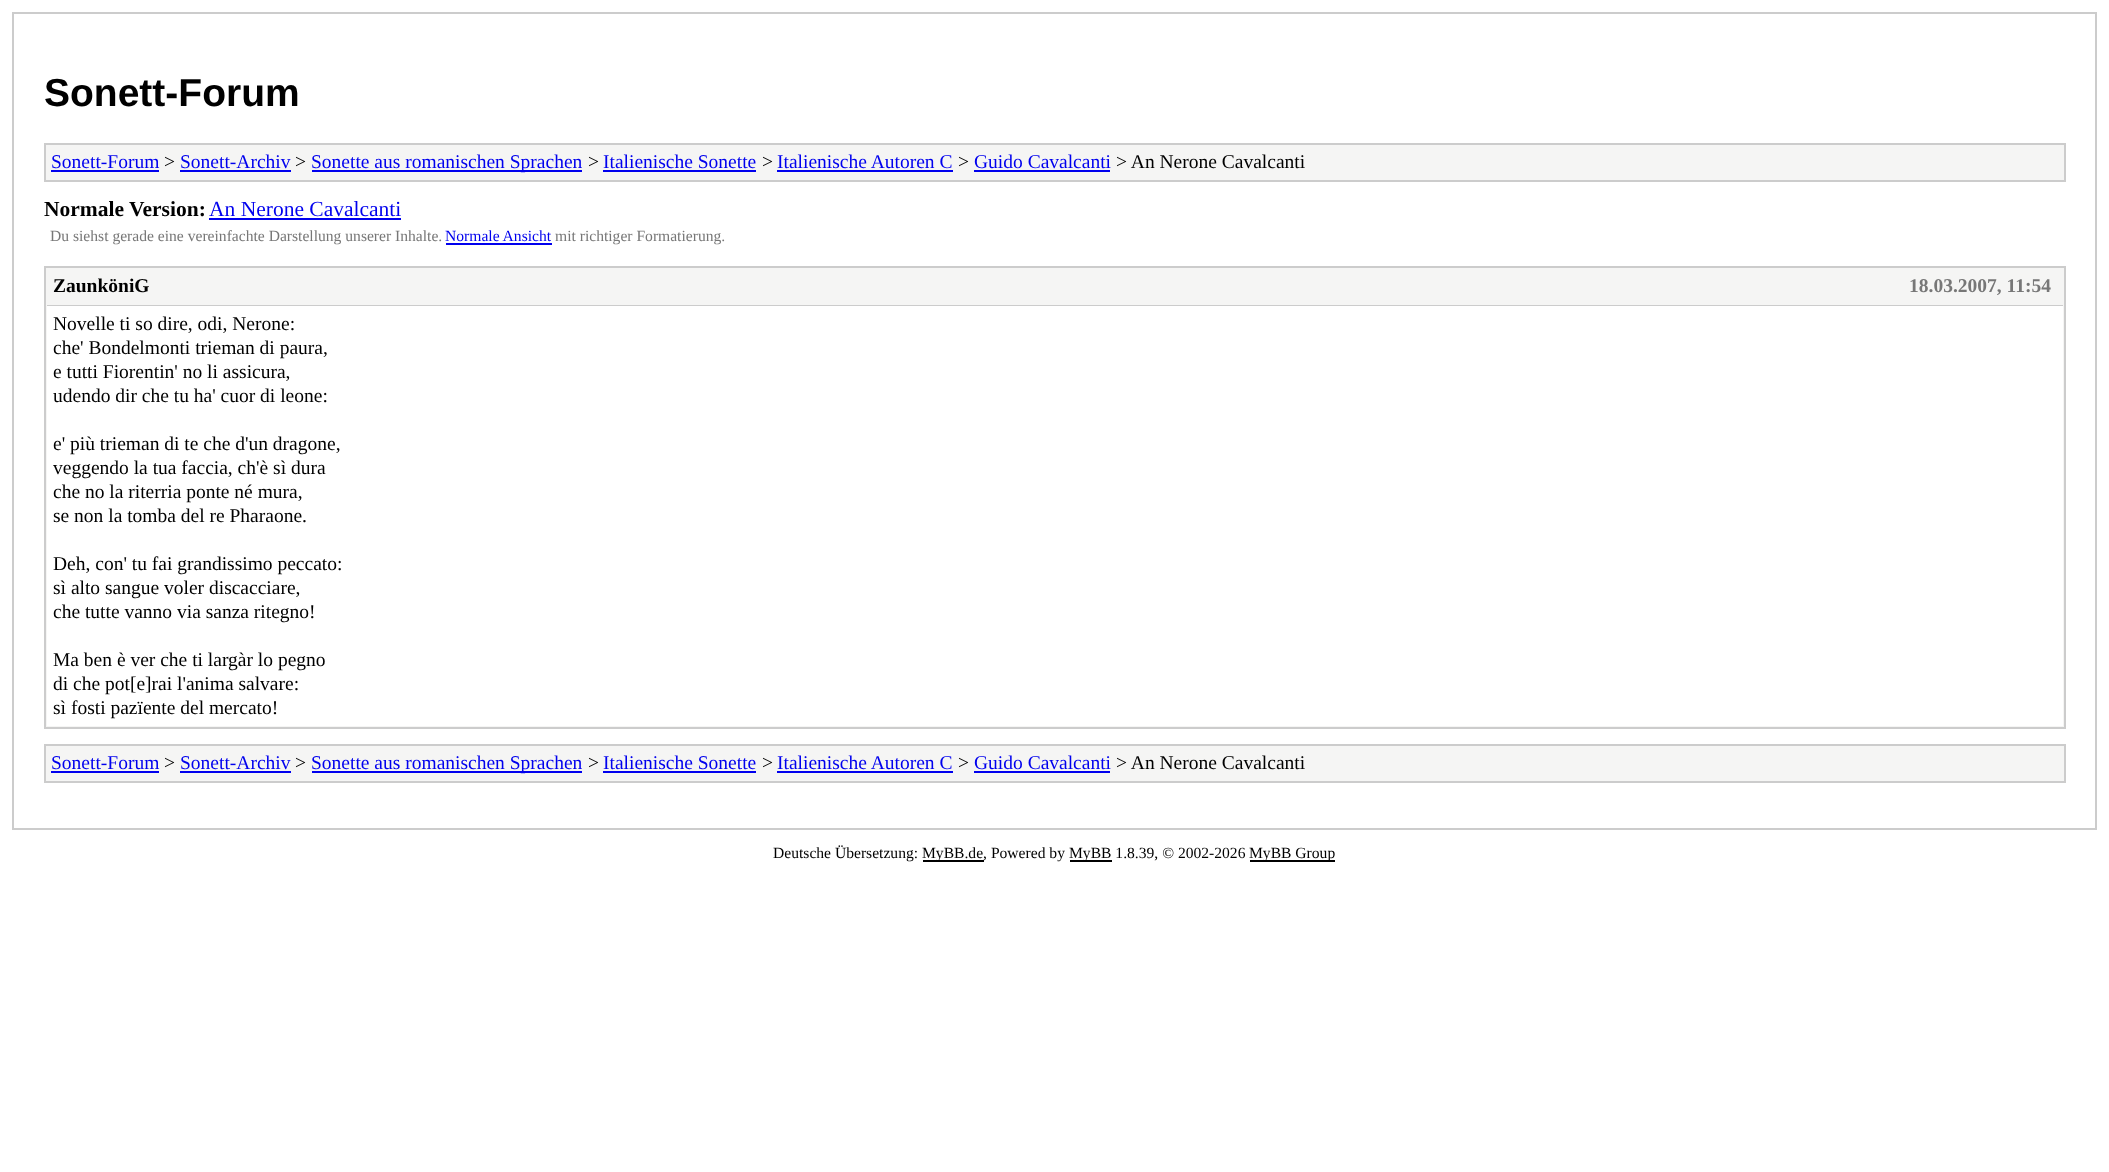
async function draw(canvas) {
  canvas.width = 2109
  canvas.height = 1172
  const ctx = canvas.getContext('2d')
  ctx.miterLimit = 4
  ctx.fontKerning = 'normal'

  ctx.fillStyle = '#fff'
  ctx.fillRect(0, 0, 2109, 1172)
  ctx.strokeStyle = '#ccc'
  ctx.lineWidth = 2
  ctx.strokeRect(13, 13, 2083, 816)
  ctx.font = 'bold 39px Liberation Sans'
  ctx.fillStyle = '#000'
  ctx.fillText('Sonett-Forum', 44, 106)
  ctx.fillStyle = '#f5f5f4'
  ctx.beginPath()
  ctx.rect(45, 144, 2020, 37)
  ctx.fill()
  ctx.stroke()
  ctx.font = '19.5px Liberation Serif'
  ctx.fillStyle = '#00e'
  ctx.fillText('Sonett-Forum', 51, 168)
  ctx.fillRect(51, 170, 108, 2)
  ctx.fillStyle = '#000'
  ctx.fillText('>', 164, 168)
  ctx.fillStyle = '#00e'
  ctx.fillText('Sonett-Archiv', 180, 168)
  ctx.fillRect(180, 170, 111, 2)
  ctx.fillStyle = '#000'
  ctx.fillText('>', 295, 168)
  ctx.fillStyle = '#00e'
  ctx.fillRect(312, 170, 270, 2)
  ctx.fillText('Sonette aus romanischen Sprachen', 311, 168)
  ctx.fillStyle = '#000'
  ctx.fillText('>', 588, 168)
  ctx.fillStyle = '#00e'
  ctx.fillText('Italienische Sonette', 603, 168)
  ctx.fillRect(603, 170, 153, 2)
  ctx.fillStyle = '#000'
  ctx.fillText('>', 762, 168)
  ctx.fillStyle = '#00e'
  ctx.fillText('Italienische Autoren C', 777, 168)
  ctx.fillRect(777, 170, 176, 2)
  ctx.fillStyle = '#000'
  ctx.fillText('>', 958, 168)
  ctx.fillStyle = '#00e'
  ctx.fillText('Guido Cavalcanti', 974, 168)
  ctx.fillRect(974, 170, 136, 2)
  ctx.fillStyle = '#000'
  ctx.fillText('> An Nerone Cavalcanti', 1116, 168)
  ctx.font = 'bold 21.5px Liberation Serif'
  ctx.fillText('Normale Version:', 44, 216)
  ctx.font = '21.5px Liberation Serif'
  ctx.fillStyle = '#00e'
  ctx.fillText('An Nerone Cavalcanti', 209, 216)
  ctx.fillRect(209, 218, 192, 2)
  ctx.font = '15.6px Liberation Serif'
  ctx.fillStyle = '#777'
  ctx.fillText('Du siehst gerade eine vereinfachte Darstellung unserer Inhalte.', 50, 241)
  ctx.fillStyle = '#00e'
  ctx.fillText('Normale Ansicht', 445, 241)
  ctx.fillRect(446, 243, 106, 2)
  ctx.fillStyle = '#777'
  ctx.fillText('mit richtiger Formatierung.', 555, 241)
  ctx.fillStyle = '#f5f5f4'
  ctx.beginPath()
  ctx.rect(45, 267, 2020, 461)
  ctx.fill()
  ctx.stroke()
  ctx.fillStyle = '#ccc'
  ctx.fillRect(47, 305, 2016, 1)
  ctx.font = 'bold 19.5px Liberation Serif'
  ctx.fillStyle = '#000'
  ctx.fillText('ZaunköniG', 53, 292)
  ctx.fillStyle = '#777'
  ctx.fillText('18.03.2007, 11:54', 1909, 292)
  ctx.fillStyle = '#fff'
  ctx.fillRect(47, 306, 2016, 420)
  ctx.font = '19.5px Liberation Serif'
  ctx.fillStyle = '#000'
  ctx.fillText('Novelle ti so dire, odi, Nerone:', 53, 330)
  ctx.fillText('che\' Bondelmonti trieman di paura,', 53, 354)
  ctx.fillText('e tutti Fiorentin\' no li assicura,', 53, 378)
  ctx.fillText('udendo dir che tu ha\' cuor di leone:', 53, 402)
  ctx.fillText('e\' più trieman di te che d\'un dragone,', 53, 450)
  ctx.fillText('veggendo la tua faccia, ch\'è sì dura', 53, 474)
  ctx.fillText('che no la riterria ponte né mura,', 53, 498)
  ctx.fillText('se non la tomba del re Pharaone.', 53, 522)
  ctx.fillText('Deh, con\' tu fai grandissimo peccato:', 53, 570)
  ctx.fillText('sì alto sangue voler discacciare,', 53, 594)
  ctx.fillText('che tutte vanno via sanza ritegno!', 53, 618)
  ctx.fillText('Ma ben è ver che ti largàr lo pegno', 53, 666)
  ctx.fillText('di che pot[e]rai l\'anima salvare:', 53, 690)
  ctx.fillText('sì fosti pazïente del mercato!', 53, 714)
  ctx.fillStyle = '#f5f5f4'
  ctx.beginPath()
  ctx.rect(45, 745, 2020, 37)
  ctx.fill()
  ctx.stroke()
  ctx.fillStyle = '#00e'
  ctx.fillText('Sonett-Forum', 51, 769)
  ctx.fillRect(51, 771, 108, 2)
  ctx.fillStyle = '#000'
  ctx.fillText('>', 164, 769)
  ctx.fillStyle = '#00e'
  ctx.fillText('Sonett-Archiv', 180, 769)
  ctx.fillRect(180, 771, 111, 2)
  ctx.fillStyle = '#000'
  ctx.fillText('>', 295, 769)
  ctx.fillStyle = '#00e'
  ctx.fillRect(312, 771, 270, 2)
  ctx.fillText('Sonette aus romanischen Sprachen', 311, 769)
  ctx.fillStyle = '#000'
  ctx.fillText('>', 588, 769)
  ctx.fillStyle = '#00e'
  ctx.fillText('Italienische Sonette', 603, 769)
  ctx.fillRect(603, 771, 153, 2)
  ctx.fillStyle = '#000'
  ctx.fillText('>', 762, 769)
  ctx.fillStyle = '#00e'
  ctx.fillText('Italienische Autoren C', 777, 769)
  ctx.fillRect(777, 771, 176, 2)
  ctx.fillStyle = '#000'
  ctx.fillText('>', 958, 769)
  ctx.fillStyle = '#00e'
  ctx.fillText('Guido Cavalcanti', 974, 769)
  ctx.fillRect(974, 771, 136, 2)
  ctx.fillStyle = '#000'
  ctx.fillText('> An Nerone Cavalcanti', 1116, 769)
  ctx.font = '15.6px Liberation Serif'
  ctx.fillText('Deutsche Übersetzung:', 773, 858)
  ctx.fillRect(923, 860, 61, 2)
  ctx.fillText('MyBB.de, Powered by', 922, 858)
  ctx.fillRect(1070, 860, 42, 2)
  ctx.fillText('MyBB 1.8.39, © 2002-2026', 1069, 858)
  ctx.fillRect(1250, 860, 85, 2)
  ctx.fillText('MyBB Group', 1249, 858)
}

draw(document.querySelector('canvas'))
